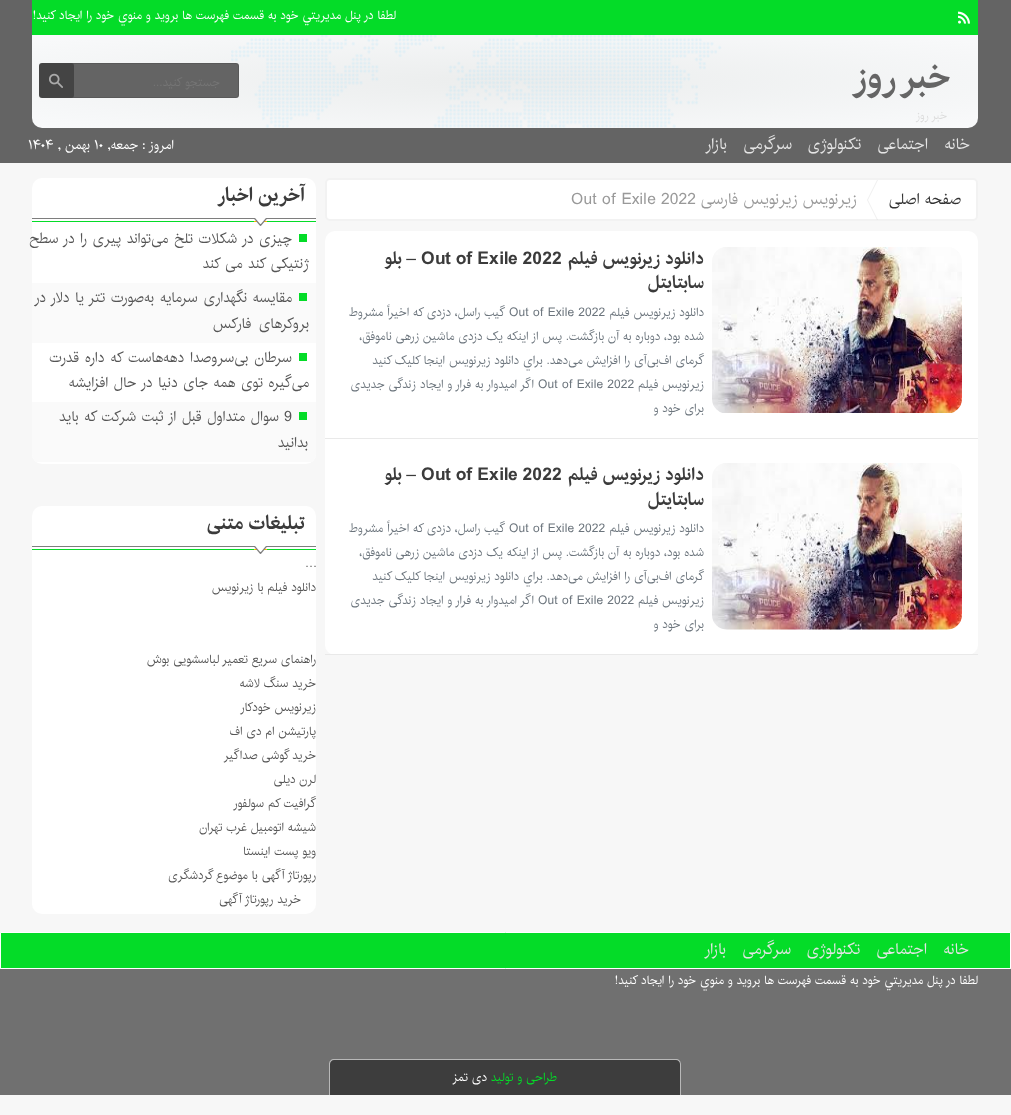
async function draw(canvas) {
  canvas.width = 1011
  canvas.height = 1115
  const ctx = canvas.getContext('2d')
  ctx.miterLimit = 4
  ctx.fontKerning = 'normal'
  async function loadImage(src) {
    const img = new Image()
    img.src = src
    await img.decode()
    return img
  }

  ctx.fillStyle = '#f7f7f7'
  ctx.fillRect(0, 0, 1011, 1115)
  ctx.fillStyle = '#646464'
  ctx.fillRect(0, 0, 1011, 163)
  ctx.fillStyle = '#04dc28'
  ctx.fillRect(32, 0, 946, 35)
  ctx.drawImage(await loadImage('image0.png'), 958, 11, 12, 13)
  ctx.direction = 'rtl'
  ctx.font = '12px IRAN'
  ctx.fillStyle = '#fff'
  ctx.fillText('لطفا در پنل مديريتي خود به قسمت فهرست ها برويد و منوي خود را ايجاد كنيد!', 396, 19)
  ctx.drawImage(await loadImage('image1.png'), 32, 35, 946, 93)
  ctx.font = 'bold 35px IRAN'
  ctx.fillStyle = '#656565'
  ctx.fillText('خبر روز', 950, 88)
  ctx.font = '11px IRAN'
  ctx.fillStyle = '#dcdcdc'
  ctx.fillText('خبر روز', 947, 119)
  ctx.fillStyle = '#646464'
  ctx.beginPath()
  ctx.roundRect(52, 63, 187, 35, 3)
  ctx.fill()
  ctx.beginPath()
  ctx.roundRect(52.5, 63.5, 186, 34, 2.5)
  ctx.strokeStyle = '#0000001a'
  ctx.stroke()
  ctx.font = '12px IRAN'
  ctx.fillStyle = '#757575'
  ctx.fillText('جستجو کنید...', 220, 86)
  ctx.fillStyle = '#444'
  ctx.beginPath()
  ctx.roundRect(39, 63, 35, 35, 3)
  ctx.fill()
  ctx.drawImage(await loadImage('image2.png'), 49, 73, 14, 15)
  ctx.font = '15.6px IRAN'
  ctx.fillStyle = '#e5e5e5'
  ctx.fillText('خانه', 970, 149)
  ctx.fillText('اجتماعی', 928, 149)
  ctx.fillText('تکنولوژی', 861, 149)
  ctx.fillText('سرگرمی', 792, 149)
  ctx.fillText('بازار', 727, 149)
  ctx.font = '13px IRAN'
  ctx.fillStyle = '#fff'
  ctx.fillText('امروز : جمعه,', 174, 149)
  ctx.direction = 'ltr'
  ctx.fillText('۱۰', 94, 149)
  ctx.direction = 'rtl'
  ctx.fillText('بهمن ,', 90, 149)
  ctx.direction = 'ltr'
  ctx.fillText('۱۴۰۴', 28, 149)
  ctx.beginPath()
  ctx.roundRect(326, 179, 651, 41, 4)
  ctx.fill()
  ctx.strokeStyle = '#f2f2f2'
  ctx.lineWidth = 2
  ctx.stroke()
  ctx.direction = 'rtl'
  ctx.font = '15.6px IRAN'
  ctx.fillStyle = '#333'
  ctx.fillText('صفحه اصلی', 961, 204)
  ctx.drawImage(await loadImage('image3.png'), 867, 180, 11, 40)
  ctx.fillStyle = '#999'
  ctx.fillText('زیرنویس زیرنویس فارسی', 857, 204)
  ctx.direction = 'ltr'
  ctx.fillText('Out of Exile 2022', 571, 204)
  ctx.fillStyle = '#fff'
  ctx.beginPath()
  ctx.roundRect(325, 231, 653, 424, 10)
  ctx.fill()
  ctx.fillStyle = '#e9e9e9'
  ctx.fillRect(325, 438, 653, 1)
  ctx.drawImage(await loadImage('image4.png'), 712, 247, 250, 166)
  ctx.direction = 'rtl'
  ctx.font = 'bold 17.5px IRAN'
  ctx.fillStyle = '#3b3b3b'
  ctx.fillText('دانلود زیرنویس فیلم', 704, 264)
  ctx.direction = 'ltr'
  ctx.fillText('Out of Exile 2022', 421, 264)
  ctx.direction = 'rtl'
  ctx.fillText('– بلو', 416, 264)
  ctx.fillText('سابتايتل', 704, 288)
  ctx.font = '12px IRAN'
  ctx.fillStyle = '#6c757d'
  ctx.fillText('دانلود زیرنویس فیلم', 704, 316)
  ctx.direction = 'ltr'
  ctx.fillText('Out of Exile 2022', 509, 316)
  ctx.direction = 'rtl'
  ctx.fillText('گیب راسل، دزدی که اخیراً مشروط', 505, 316)
  ctx.fillText('شده بود، دوباره به آن بازگشت. پس از اینکه یک دزدی ماشین زرهی ناموفق،', 704, 340)
  ctx.fillText('گرمای اف‌بی‌آی را افزایش می‌دهد. براي دانلود زيرنويس اينجا کليک کنيد', 704, 364)
  ctx.fillText('زیرنویس فیلم', 704, 388)
  ctx.direction = 'ltr'
  ctx.fillText('Out of Exile 2022', 538, 388)
  ctx.direction = 'rtl'
  ctx.fillText('اگر امیدوار به فرار و ایجاد زندگی جدیدی', 534, 388)
  ctx.fillText('برای خود و', 704, 412)
  ctx.fillStyle = '#e9e9e9'
  ctx.fillRect(325, 654, 653, 1)
  ctx.drawImage(await loadImage('image5.png'), 712, 463, 250, 167)
  ctx.font = 'bold 17.5px IRAN'
  ctx.fillStyle = '#3b3b3b'
  ctx.fillText('دانلود زیرنویس فیلم', 704, 480)
  ctx.direction = 'ltr'
  ctx.fillText('Out of Exile 2022', 421, 480)
  ctx.direction = 'rtl'
  ctx.fillText('– بلو', 416, 480)
  ctx.fillText('سابتايتل', 704, 505)
  ctx.font = '12px IRAN'
  ctx.fillStyle = '#6c757d'
  ctx.fillText('دانلود زیرنویس فیلم', 704, 532)
  ctx.direction = 'ltr'
  ctx.fillText('Out of Exile 2022', 509, 532)
  ctx.direction = 'rtl'
  ctx.fillText('گیب راسل، دزدی که اخیراً مشروط', 505, 532)
  ctx.fillText('شده بود، دوباره به آن بازگشت. پس از اینکه یک دزدی ماشین زرهی ناموفق،', 704, 556)
  ctx.fillText('گرمای اف‌بی‌آی را افزایش می‌دهد. براي دانلود زيرنويس اينجا کليک کنيد', 704, 580)
  ctx.fillText('زیرنویس فیلم', 704, 604)
  ctx.direction = 'ltr'
  ctx.fillText('Out of Exile 2022', 538, 604)
  ctx.direction = 'rtl'
  ctx.fillText('اگر امیدوار به فرار و ایجاد زندگی جدیدی', 534, 604)
  ctx.fillText('برای خود و', 704, 628)
  ctx.fillStyle = '#fff'
  ctx.beginPath()
  ctx.roundRect(32, 178, 284, 286, 10)
  ctx.fill()
  ctx.fillStyle = '#04dc28'
  ctx.fillRect(32, 221, 284, 1)
  ctx.fillStyle = '#7e7e7e'
  ctx.fillRect(32, 218, 284, 1)
  ctx.font = 'bold 19.25px IRAN'
  ctx.fillStyle = '#3b3b3b'
  ctx.fillText('آخرین اخبار', 305, 201)
  ctx.drawImage(await loadImage('image6.png'), 254, 218, 13, 8)
  ctx.fillStyle = '#04dc28'
  ctx.fillRect(299, 234, 8, 8)
  ctx.letterSpacing = '-0.2px'
  ctx.wordSpacing = '1px'
  ctx.font = '14.3px IRAN'
  ctx.fillStyle = '#555'
  ctx.fillText('چیزی در شکلات تلخ می‌تواند پیری را در سطح', 292, 243)
  ctx.fillText('ژنتیکی کند می کند', 309, 268)
  ctx.fillStyle = '#fafafa'
  ctx.fillRect(32, 283, 284, 60)
  ctx.fillStyle = '#04dc28'
  ctx.fillRect(299, 293, 8, 8)
  ctx.wordSpacing = '1.25px'
  ctx.fillStyle = '#555'
  ctx.fillText('مقایسه نگهداری سرمایه به‌صورت تتر یا دلار در', 292, 302)
  ctx.wordSpacing = '3px'
  ctx.fillText('بروکرهای فارکس', 309, 328)
  ctx.fillStyle = '#04dc28'
  ctx.fillRect(299, 353, 8, 8)
  ctx.wordSpacing = '1.5px'
  ctx.fillStyle = '#555'
  ctx.fillText('سرطان بی‌سروصدا دهه‌هاست که داره قدرت', 292, 362)
  ctx.wordSpacing = '1px'
  ctx.fillText('می‌گیره توی همه جای دنیا در حال افزایشه', 309, 387)
  ctx.save()
  ctx.beginPath()
  ctx.roundRect(32, 178, 284, 286, 10)
  ctx.clip()
  ctx.fillStyle = '#fafafa'
  ctx.fillRect(32, 402, 284, 60)
  ctx.restore()
  ctx.fillStyle = '#04dc28'
  ctx.fillRect(299, 412, 8, 8)
  ctx.wordSpacing = '0px'
  ctx.direction = 'ltr'
  ctx.fillStyle = '#555'
  ctx.fillText('9', 284, 421)
  ctx.wordSpacing = '1px'
  ctx.direction = 'rtl'
  ctx.fillText('سوال متداول قبل از ثبت شرکت که باید', 279, 421)
  ctx.wordSpacing = '0px'
  ctx.fillText('بدانید', 308, 447)
  ctx.fillStyle = '#fff'
  ctx.beginPath()
  ctx.roundRect(32, 506, 284, 408, 10)
  ctx.fill()
  ctx.fillStyle = '#04dc28'
  ctx.fillRect(32, 549, 284, 1)
  ctx.fillStyle = '#7e7e7e'
  ctx.fillRect(32, 546, 284, 1)
  ctx.letterSpacing = '0px'
  ctx.font = 'bold 19.25px IRAN'
  ctx.fillStyle = '#3b3b3b'
  ctx.fillText('تبلیغات متنی', 305, 529)
  ctx.drawImage(await loadImage('image6.png'), 254, 546, 13, 8)
  ctx.direction = 'ltr'
  ctx.font = '12px IRAN'
  ctx.fillStyle = '#656565'
  ctx.fillText('…', 305, 567)
  ctx.direction = 'rtl'
  ctx.fillStyle = '#555'
  ctx.fillText('دانلود فيلم با زيرنويس', 316, 591)
  ctx.fillText('راهنمای سریع تعمیر لباسشویی بوش', 316, 663)
  ctx.fillText('خرید سنگ لاشه', 316, 687)
  ctx.fillText('زيرنويس خودکار', 316, 711)
  ctx.fillText('پارتیشن ام دی اف', 316, 735)
  ctx.fillText('خرید گوشی صداگیر', 316, 759)
  ctx.fillText('لرن دیلی', 316, 783)
  ctx.fillText('گرافیت کم سولفور', 316, 807)
  ctx.fillText('شیشه اتومبیل غرب تهران', 316, 831)
  ctx.fillText('ویو پست اینستا', 316, 855)
  ctx.fillText('رپورتاژ آگهی با موضوع گردشگری', 316, 879)
  ctx.fillText('خرید رپورتاژ آگهی', 301, 903)
  ctx.fillStyle = '#707070'
  ctx.fillRect(0, 969, 1011, 126)
  ctx.fillStyle = '#04dc28'
  ctx.beginPath()
  ctx.rect(0.5, 932.5, 1010, 36)
  ctx.fill()
  ctx.strokeStyle = '#fff'
  ctx.lineWidth = 1
  ctx.stroke()
  ctx.font = '15.6px IRAN'
  ctx.fillStyle = '#e5e5e5'
  ctx.fillText('خانه', 969, 954)
  ctx.fillText('اجتماعی', 927, 954)
  ctx.fillText('تکنولوژی', 860, 954)
  ctx.fillText('سرگرمی', 791, 954)
  ctx.fillText('بازار', 726, 954)
  ctx.font = '12px IRAN'
  ctx.fillStyle = '#fff'
  ctx.fillText('لطفا در پنل مديريتي خود به قسمت فهرست ها برويد و منوي خود را ايجاد كنيد!', 978, 984)
  ctx.fillStyle = '#3d3d3d'
  ctx.beginPath()
  ctx.roundRect(329, 1059, 352, 36, [5, 5, 0, 0])
  ctx.fill()
  ctx.fillStyle = '#b8b8b8'
  ctx.beginPath()
  ctx.moveTo(334, 1059)
  ctx.lineTo(676, 1059)
  ctx.bezierCurveTo(679, 1059, 681, 1061, 681, 1064)
  ctx.lineTo(681, 1095)
  ctx.lineTo(329, 1095)
  ctx.lineTo(329, 1064)
  ctx.bezierCurveTo(329, 1061, 331, 1059, 334, 1059)
  ctx.closePath()
  ctx.moveTo(334, 1060)
  ctx.lineTo(676, 1060)
  ctx.bezierCurveTo(678, 1060, 680, 1062, 680, 1064)
  ctx.lineTo(680, 1095)
  ctx.lineTo(330, 1095)
  ctx.lineTo(330, 1064)
  ctx.bezierCurveTo(330, 1062, 332, 1060, 334, 1060)
  ctx.closePath()
  ctx.fill('evenodd')
  ctx.fillStyle = '#04dc28'
  ctx.fillText('طراحی و تولید', 557, 1081)
  ctx.fillStyle = '#fff'
  ctx.fillText('دی تمز', 487, 1081)
}

draw(document.querySelector('canvas'))
